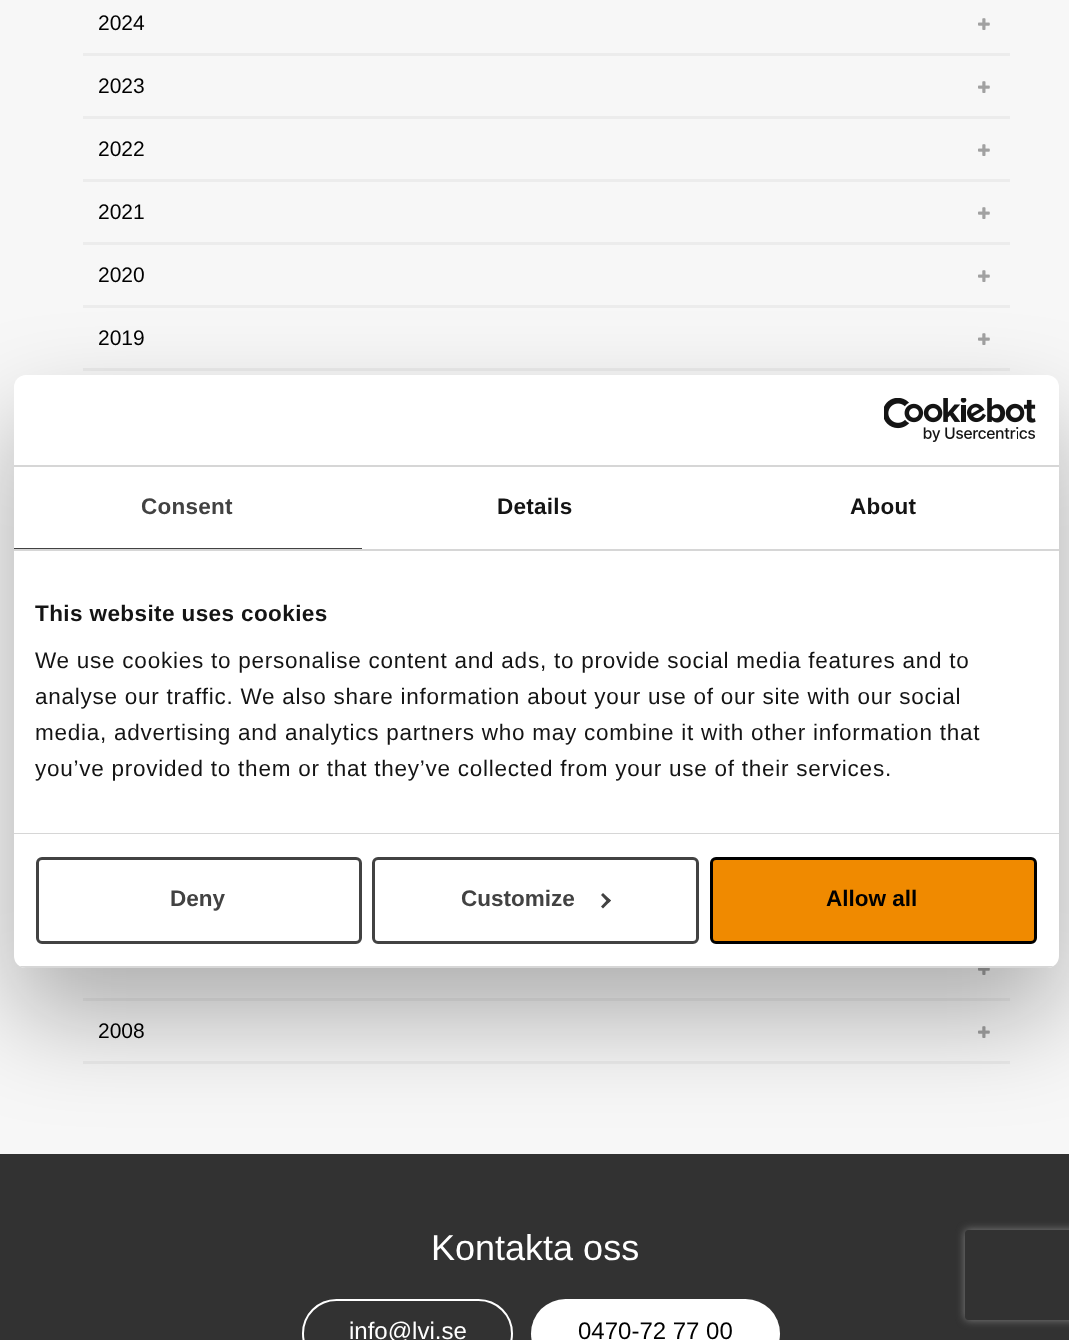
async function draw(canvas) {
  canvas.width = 1069
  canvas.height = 1340
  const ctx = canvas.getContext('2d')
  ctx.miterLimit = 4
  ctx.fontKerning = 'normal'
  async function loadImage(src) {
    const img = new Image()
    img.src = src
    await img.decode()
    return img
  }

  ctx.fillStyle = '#f7f7f7'
  ctx.fillRect(0, 0, 1069, 1340)
  ctx.fillStyle = '#ececec'
  ctx.fillRect(83, 53, 927, 3)
  ctx.font = '21px Liberation Sans'
  ctx.fillStyle = '#000'
  ctx.fillText('2024', 98, 30)
  ctx.drawImage(await loadImage('image0.png'), 978, 18, 12, 12)
  ctx.fillStyle = '#ececec'
  ctx.fillRect(83, 116, 927, 3)
  ctx.fillStyle = '#000'
  ctx.fillText('2023', 98, 93)
  ctx.drawImage(await loadImage('image0.png'), 978, 81, 12, 12)
  ctx.fillStyle = '#ececec'
  ctx.fillRect(83, 179, 927, 3)
  ctx.fillStyle = '#000'
  ctx.fillText('2022', 98, 156)
  ctx.drawImage(await loadImage('image0.png'), 978, 144, 12, 12)
  ctx.fillStyle = '#ececec'
  ctx.fillRect(83, 242, 927, 3)
  ctx.fillStyle = '#000'
  ctx.fillText('2021', 98, 219)
  ctx.drawImage(await loadImage('image0.png'), 978, 207, 12, 12)
  ctx.fillStyle = '#ececec'
  ctx.fillRect(83, 305, 927, 3)
  ctx.fillStyle = '#000'
  ctx.fillText('2020', 98, 282)
  ctx.drawImage(await loadImage('image0.png'), 978, 270, 12, 12)
  ctx.fillStyle = '#ececec'
  ctx.fillRect(83, 368, 927, 3)
  ctx.fillStyle = '#000'
  ctx.fillText('2019', 98, 345)
  ctx.drawImage(await loadImage('image0.png'), 978, 333, 12, 12)
  ctx.drawImage(await loadImage('image1.png'), 978, 968, 12, 7)
  ctx.fillStyle = '#ececec'
  ctx.fillRect(83, 998, 927, 3)
  ctx.fillRect(83, 1061, 927, 3)
  ctx.fillStyle = '#000'
  ctx.fillText('2008', 98, 1038)
  ctx.drawImage(await loadImage('image0.png'), 978, 1026, 12, 12)
  ctx.fillStyle = '#323232'
  ctx.fillRect(0, 1154, 1069, 186)
  ctx.fillStyle = '#0000004d'
  ctx.filter = 'blur(51px)'
  ctx.beginPath()
  ctx.roundRect(14, 423, 1045, 593, 12)
  ctx.fill()
  ctx.filter = 'none'
  ctx.fillStyle = '#fff'
  ctx.beginPath()
  ctx.roundRect(14, 375, 1045, 593, 12)
  ctx.fill()
  ctx.fillStyle = '#d6d6d6'
  ctx.fillRect(14, 465, 1045, 2)
  ctx.drawImage(await loadImage('image2.png'), 884, 398, 152, 44)
  ctx.fillRect(14, 549, 1045, 2)
  ctx.fillStyle = '#424242'
  ctx.fillRect(14, 548, 348, 1)
  ctx.letterSpacing = '0.25px'
  ctx.font = 'bold 22.5px Liberation Sans'
  ctx.fillText('Consent', 141, 514)
  ctx.fillStyle = '#141414'
  ctx.fillText('Details', 497, 514)
  ctx.fillText('About', 850, 514)
  ctx.fillStyle = '#d6d6d6'
  ctx.fillRect(14, 833, 1045, 1)
  ctx.letterSpacing = '0.4px'
  ctx.fillStyle = '#141414'
  ctx.fillText('This website uses cookies', 35, 621)
  ctx.letterSpacing = '0.75px'
  ctx.font = '22.5px Liberation Sans'
  ctx.fillText('We use cookies to personalise content and ads, to provide social media features and to', 35, 668)
  ctx.fillText('analyse our traffic. We also share information about your use of our site with our social', 35, 704)
  ctx.fillText('media, advertising and analytics partners who may combine it with other information that', 35, 740)
  ctx.fillText('you’ve provided to them or that they’ve collected from your use of their services.', 35, 776)
  ctx.save()
  ctx.beginPath()
  ctx.roundRect(14, 375, 1045, 593, 12)
  ctx.clip()
  ctx.fillStyle = '#d6d6d6'
  ctx.fillRect(14, 966, 1045, 2)
  ctx.restore()
  ctx.beginPath()
  ctx.roundRect(37.5, 858.5, 323, 84, 4.5)
  ctx.strokeStyle = '#424242'
  ctx.lineWidth = 3
  ctx.stroke()
  ctx.letterSpacing = '0px'
  ctx.font = 'bold 22.5px Liberation Sans'
  ctx.fillStyle = '#424242'
  ctx.fillText('Deny', 170, 906)
  ctx.beginPath()
  ctx.roundRect(373.5, 858.5, 324, 84, 4.5)
  ctx.stroke()
  ctx.fillText('Customize', 461, 906)
  ctx.beginPath()
  ctx.moveTo(603, 893)
  ctx.lineTo(611, 900.5)
  ctx.lineTo(608.5, 903)
  ctx.lineTo(601, 895)
  ctx.closePath()
  ctx.fill()
  ctx.beginPath()
  ctx.moveTo(608.5, 898.5)
  ctx.lineTo(611, 900.5)
  ctx.lineTo(603, 908.5)
  ctx.lineTo(601, 906.5)
  ctx.closePath()
  ctx.fill()
  ctx.fillStyle = '#f08a00'
  ctx.beginPath()
  ctx.roundRect(711.5, 858.5, 324, 84, 4.5)
  ctx.fill()
  ctx.strokeStyle = '#000'
  ctx.stroke()
  ctx.fillStyle = '#000'
  ctx.fillText('Allow all', 826, 906)
  ctx.font = '36px Liberation Sans'
  ctx.fillStyle = '#fff'
  ctx.fillText('Kontakta oss', 431, 1260)
  ctx.beginPath()
  ctx.roundRect(303, 1300, 209, 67, 33.5)
  ctx.strokeStyle = '#fff'
  ctx.lineWidth = 2
  ctx.stroke()
  ctx.font = '24px Liberation Sans'
  ctx.fillText('info@lvi.se', 349, 1339)
  ctx.beginPath()
  ctx.roundRect(531, 1299, 249, 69, 34.5)
  ctx.fill()
  ctx.fillStyle = '#000'
  ctx.fillText('0470-72 77 00', 578, 1339)
  ctx.save()
  ctx.beginPath()
  ctx.moveTo(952, 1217)
  ctx.lineTo(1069, 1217)
  ctx.lineTo(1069, 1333)
  ctx.lineTo(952, 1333)
  ctx.closePath()
  ctx.moveTo(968, 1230)
  ctx.lineTo(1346, 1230)
  ctx.bezierCurveTo(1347.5, 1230, 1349, 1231.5, 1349, 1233)
  ctx.lineTo(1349, 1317)
  ctx.bezierCurveTo(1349, 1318.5, 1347.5, 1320, 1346, 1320)
  ctx.lineTo(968, 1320)
  ctx.bezierCurveTo(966.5, 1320, 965, 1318.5, 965, 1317)
  ctx.lineTo(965, 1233)
  ctx.bezierCurveTo(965, 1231.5, 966.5, 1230, 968, 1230)
  ctx.closePath()
  ctx.clip('evenodd')
  ctx.fillStyle = '#808080'
  ctx.filter = 'blur(4px)'
  ctx.beginPath()
  ctx.roundRect(965, 1230, 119, 90, 3)
  ctx.fill()
  ctx.filter = 'none'
  ctx.restore()
}

draw(document.querySelector('canvas'))
